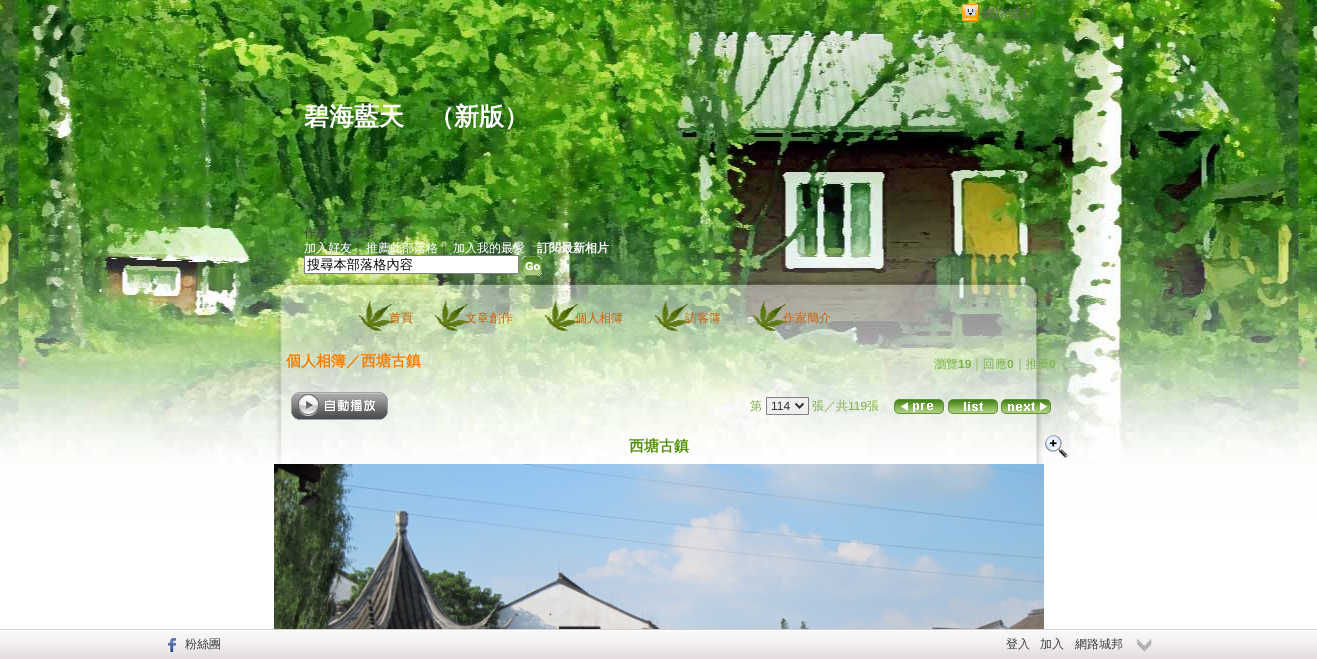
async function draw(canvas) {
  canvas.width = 1317
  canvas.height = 659
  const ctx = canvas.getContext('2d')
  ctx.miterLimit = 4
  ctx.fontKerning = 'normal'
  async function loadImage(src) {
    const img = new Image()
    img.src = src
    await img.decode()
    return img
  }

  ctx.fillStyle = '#fff'
  ctx.fillRect(0, 0, 1317, 659)
  ctx.drawImage(await loadImage('image0.png'), 0, 0, 1317, 519)
  ctx.drawImage(await loadImage('image1.png'), 962, 4, 17, 18)
  ctx.font = '500 13px WenQuanYi Zen Hei'
  ctx.fillStyle = '#666'
  ctx.fillText('網路城邦', 982, 18)
  ctx.font = 'bold 25px WenQuanYi Zen Hei'
  ctx.fillStyle = '#fff'
  ctx.fillText('碧海藍天', 304, 125)
  ctx.fillText('（新版）', 429, 125)
  ctx.font = '500 12px WenQuanYi Zen Hei'
  ctx.fillStyle = '#414141'
  ctx.fillText('作家：陳碧月', 304, 237)
  ctx.fillStyle = '#fff'
  ctx.fillText('加入好友', 304, 252)
  ctx.fillStyle = '#333'
  ctx.fillText('｜', 352, 252)
  ctx.fillStyle = '#fff'
  ctx.fillText('推薦此部落格', 366, 252)
  ctx.fillStyle = '#333'
  ctx.fillText('｜', 438, 252)
  ctx.fillStyle = '#fff'
  ctx.fillText('加入我的最愛', 453, 252)
  ctx.fillStyle = '#333'
  ctx.fillText('｜', 525, 252)
  ctx.font = 'bold 12px WenQuanYi Zen Hei'
  ctx.fillStyle = '#fff'
  ctx.fillText('訂閱最新相片', 537, 252)
  ctx.beginPath()
  ctx.rect(304.5, 255.5, 214, 18)
  ctx.fill()
  ctx.strokeStyle = '#808080'
  ctx.stroke()
  ctx.font = '500 13.25px WenQuanYi Zen Hei'
  ctx.fillStyle = '#000'
  ctx.fillText('搜尋本部落格內容', 307, 269)
  ctx.drawImage(await loadImage('image2.png'), 522, 256, 20, 20)
  ctx.drawImage(await loadImage('image3.png'), 359, 301, 36, 34)
  ctx.font = '500 12px WenQuanYi Zen Hei'
  ctx.fillStyle = '#cc6511'
  ctx.fillText('首頁', 389, 322)
  ctx.drawImage(await loadImage('image4.png'), 435, 301, 36, 34)
  ctx.fillText('文章創作', 465, 322)
  ctx.drawImage(await loadImage('image5.png'), 545, 301, 36, 34)
  ctx.fillText('個人相簿', 575, 322)
  ctx.drawImage(await loadImage('image6.png'), 655, 301, 36, 34)
  ctx.fillText('訪客簿', 685, 322)
  ctx.drawImage(await loadImage('image7.png'), 753, 301, 36, 34)
  ctx.fillText('作家簡介', 783, 322)
  ctx.font = 'bold 15px WenQuanYi Zen Hei'
  ctx.fillStyle = '#f47e00'
  ctx.fillText('個人相簿／西塘古鎮', 286, 366)
  ctx.font = '500 12px WenQuanYi Zen Hei'
  ctx.fillStyle = '#81b34d'
  ctx.fillText('瀏覽', 934, 368)
  ctx.font = 'bold 12px Liberation Sans'
  ctx.fillText('19', 958, 368)
  ctx.font = '500 12px WenQuanYi Zen Hei'
  ctx.fillText('｜回應', 971, 368)
  ctx.font = 'bold 12px Liberation Sans'
  ctx.fillText('0', 1007, 368)
  ctx.font = '500 12px WenQuanYi Zen Hei'
  ctx.fillText('｜推薦', 1014, 368)
  ctx.font = 'bold 12px Liberation Sans'
  ctx.fillText('0', 1049, 368)
  ctx.drawImage(await loadImage('image8.png'), 291, 392, 97, 28)
  ctx.font = '500 12px WenQuanYi Zen Hei'
  ctx.fillText('第', 750, 410)
  ctx.fillStyle = '#efefef'
  ctx.beginPath()
  ctx.rect(766.5, 397.5, 42, 17)
  ctx.fill()
  ctx.stroke()
  ctx.beginPath()
  ctx.moveTo(795.5, 403.5)
  ctx.lineTo(799.5, 407.5)
  ctx.lineTo(803.5, 403.5)
  ctx.strokeStyle = '#333'
  ctx.lineWidth = 2
  ctx.stroke()
  ctx.font = '12px Liberation Sans'
  ctx.fillStyle = '#333'
  ctx.fillText('114', 771, 410)
  ctx.font = '500 12px WenQuanYi Zen Hei'
  ctx.fillStyle = '#81b34d'
  ctx.fillText('張／共', 812, 410)
  ctx.font = '12px Liberation Sans'
  ctx.fillText('119', 848, 410)
  ctx.font = '500 12px WenQuanYi Zen Hei'
  ctx.fillText('張', 867, 410)
  ctx.drawImage(await loadImage('image9.png'), 894, 399, 50, 15)
  ctx.drawImage(await loadImage('image10.png'), 948, 399, 50, 15)
  ctx.drawImage(await loadImage('image11.png'), 1001, 399, 50, 15)
  ctx.font = 'bold 15px WenQuanYi Zen Hei'
  ctx.fillStyle = '#529109'
  ctx.fillText('西塘古鎮', 629, 451)
  ctx.drawImage(await loadImage('image12.png'), 1045, 435, 23, 23)
  ctx.drawImage(await loadImage('image13.png'), 274, 464, 770, 165)
  ctx.drawImage(await loadImage('image14.png'), 0, 629, 1317, 30)
  ctx.drawImage(await loadImage('image15.png'), 168, 638, 8, 14)
  ctx.font = '500 12px WenQuanYi Zen Hei'
  ctx.fillStyle = '#414141'
  ctx.fillText('粉絲團', 185, 648)
  ctx.fillText('登入', 1006, 648)
  ctx.fillText('加入', 1040, 648)
  ctx.fillText('網路城邦', 1075, 648)
  ctx.drawImage(await loadImage('image16.png'), 1137, 638, 15, 14)
}

draw(document.querySelector('canvas'))
